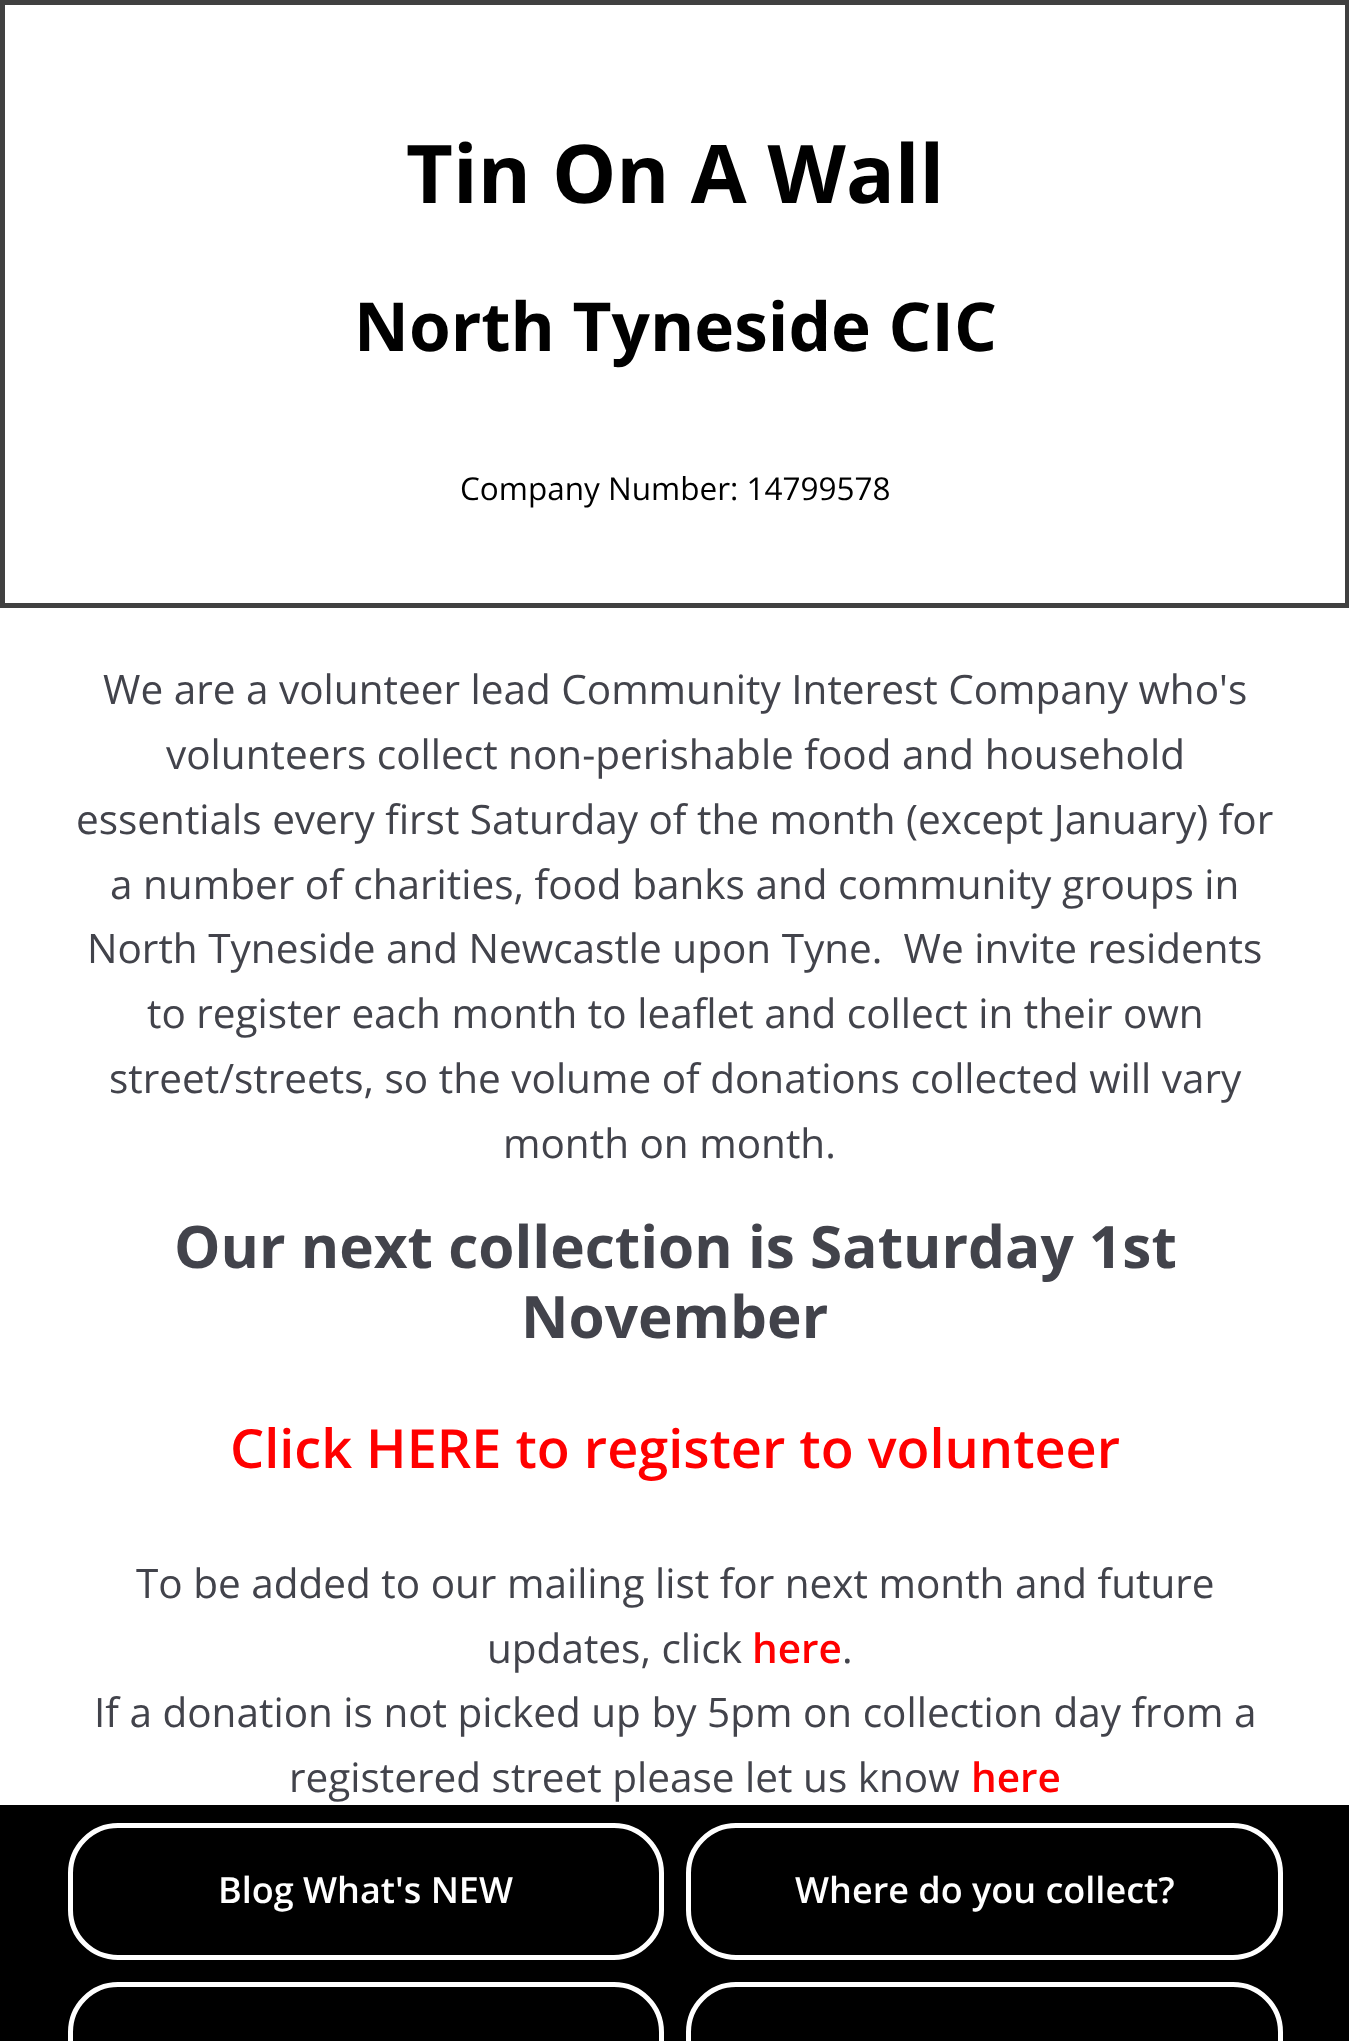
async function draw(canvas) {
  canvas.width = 1349
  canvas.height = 2041
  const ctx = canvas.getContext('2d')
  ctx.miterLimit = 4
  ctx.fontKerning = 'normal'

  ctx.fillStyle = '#fff'
  ctx.fillRect(0, 0, 1349, 2041)
  ctx.strokeStyle = '#404040'
  ctx.lineWidth = 5
  ctx.strokeRect(2.5, 2.5, 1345, 603)
  ctx.font = 'bold 81px Open Sans'
  ctx.fillStyle = '#000'
  ctx.fillText('Tin On A Wall', 406, 203)
  ctx.font = 'bold 67.5px Open Sans'
  ctx.fillText('North Tyneside CIC', 354, 351)
  ctx.font = '31.5px Open Sans'
  ctx.fillText('Company Number: 14799578', 460, 500)
  ctx.font = '40.5px Open Sans'
  ctx.fillStyle = '#42434b'
  ctx.fillText('We are a volunteer lead Community Interest Company who\'s', 103, 704)
  ctx.fillText('volunteers collect non-perishable food and household', 166, 769)
  ctx.fillText('essentials every first Saturday of the month (except January) for', 76, 834)
  ctx.fillText('a number of charities, food banks and community groups in', 110, 899)
  ctx.fillText('North Tyneside and Newcastle upon Tyne.  We invite residents', 87, 963)
  ctx.fillText('to register each month to leaflet and collect in their own', 147, 1028)
  ctx.fillText('street/streets, so the volume of donations collected will vary', 109, 1093)
  ctx.fillText('month on month.', 503, 1158)
  ctx.font = 'bold 58.5px Open Sans'
  ctx.fillText('Our next collection is Saturday 1st', 174, 1268)
  ctx.fillText('November', 521, 1338)
  ctx.font = '600 54px Open Sans'
  ctx.fillStyle = '#f00'
  ctx.fillText('Click HERE to register to volunteer', 230, 1468)
  ctx.font = '40.5px Open Sans'
  ctx.fillStyle = '#42434b'
  ctx.fillText('To be added to our mailing list for next month and future', 136, 1598)
  ctx.fillText('updates, click', 487, 1663)
  ctx.font = '600 40.5px Open Sans'
  ctx.fillStyle = '#f00'
  ctx.fillText('here', 752, 1663)
  ctx.font = '40.5px Open Sans'
  ctx.fillStyle = '#42434b'
  ctx.fillText('.', 842, 1663)
  ctx.fillText('If a donation is not picked up by 5pm on collection day from a', 94, 1727)
  ctx.fillText('registered street please let us know', 289, 1792)
  ctx.font = '600 40.5px Open Sans'
  ctx.fillStyle = '#f00'
  ctx.fillText('here', 971, 1792)
  ctx.fillStyle = '#000'
  ctx.fillRect(0, 1805, 1349, 236)
  ctx.beginPath()
  ctx.roundRect(70.5, 1825.5, 591, 132, 47.5)
  ctx.strokeStyle = '#fff'
  ctx.stroke()
  ctx.font = '600 36px Open Sans'
  ctx.fillStyle = '#fff'
  ctx.fillText('Blog What\'s NEW', 218, 1903)
  ctx.beginPath()
  ctx.roundRect(688.5, 1825.5, 592, 132, 47.5)
  ctx.stroke()
  ctx.fillText('Where do you collect?', 795, 1903)
  ctx.beginPath()
  ctx.roundRect(70.5, 1984.5, 591, 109, 47.5)
  ctx.stroke()
  ctx.beginPath()
  ctx.roundRect(688.5, 1984.5, 592, 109, 47.5)
  ctx.stroke()
}

draw(document.querySelector('canvas'))
